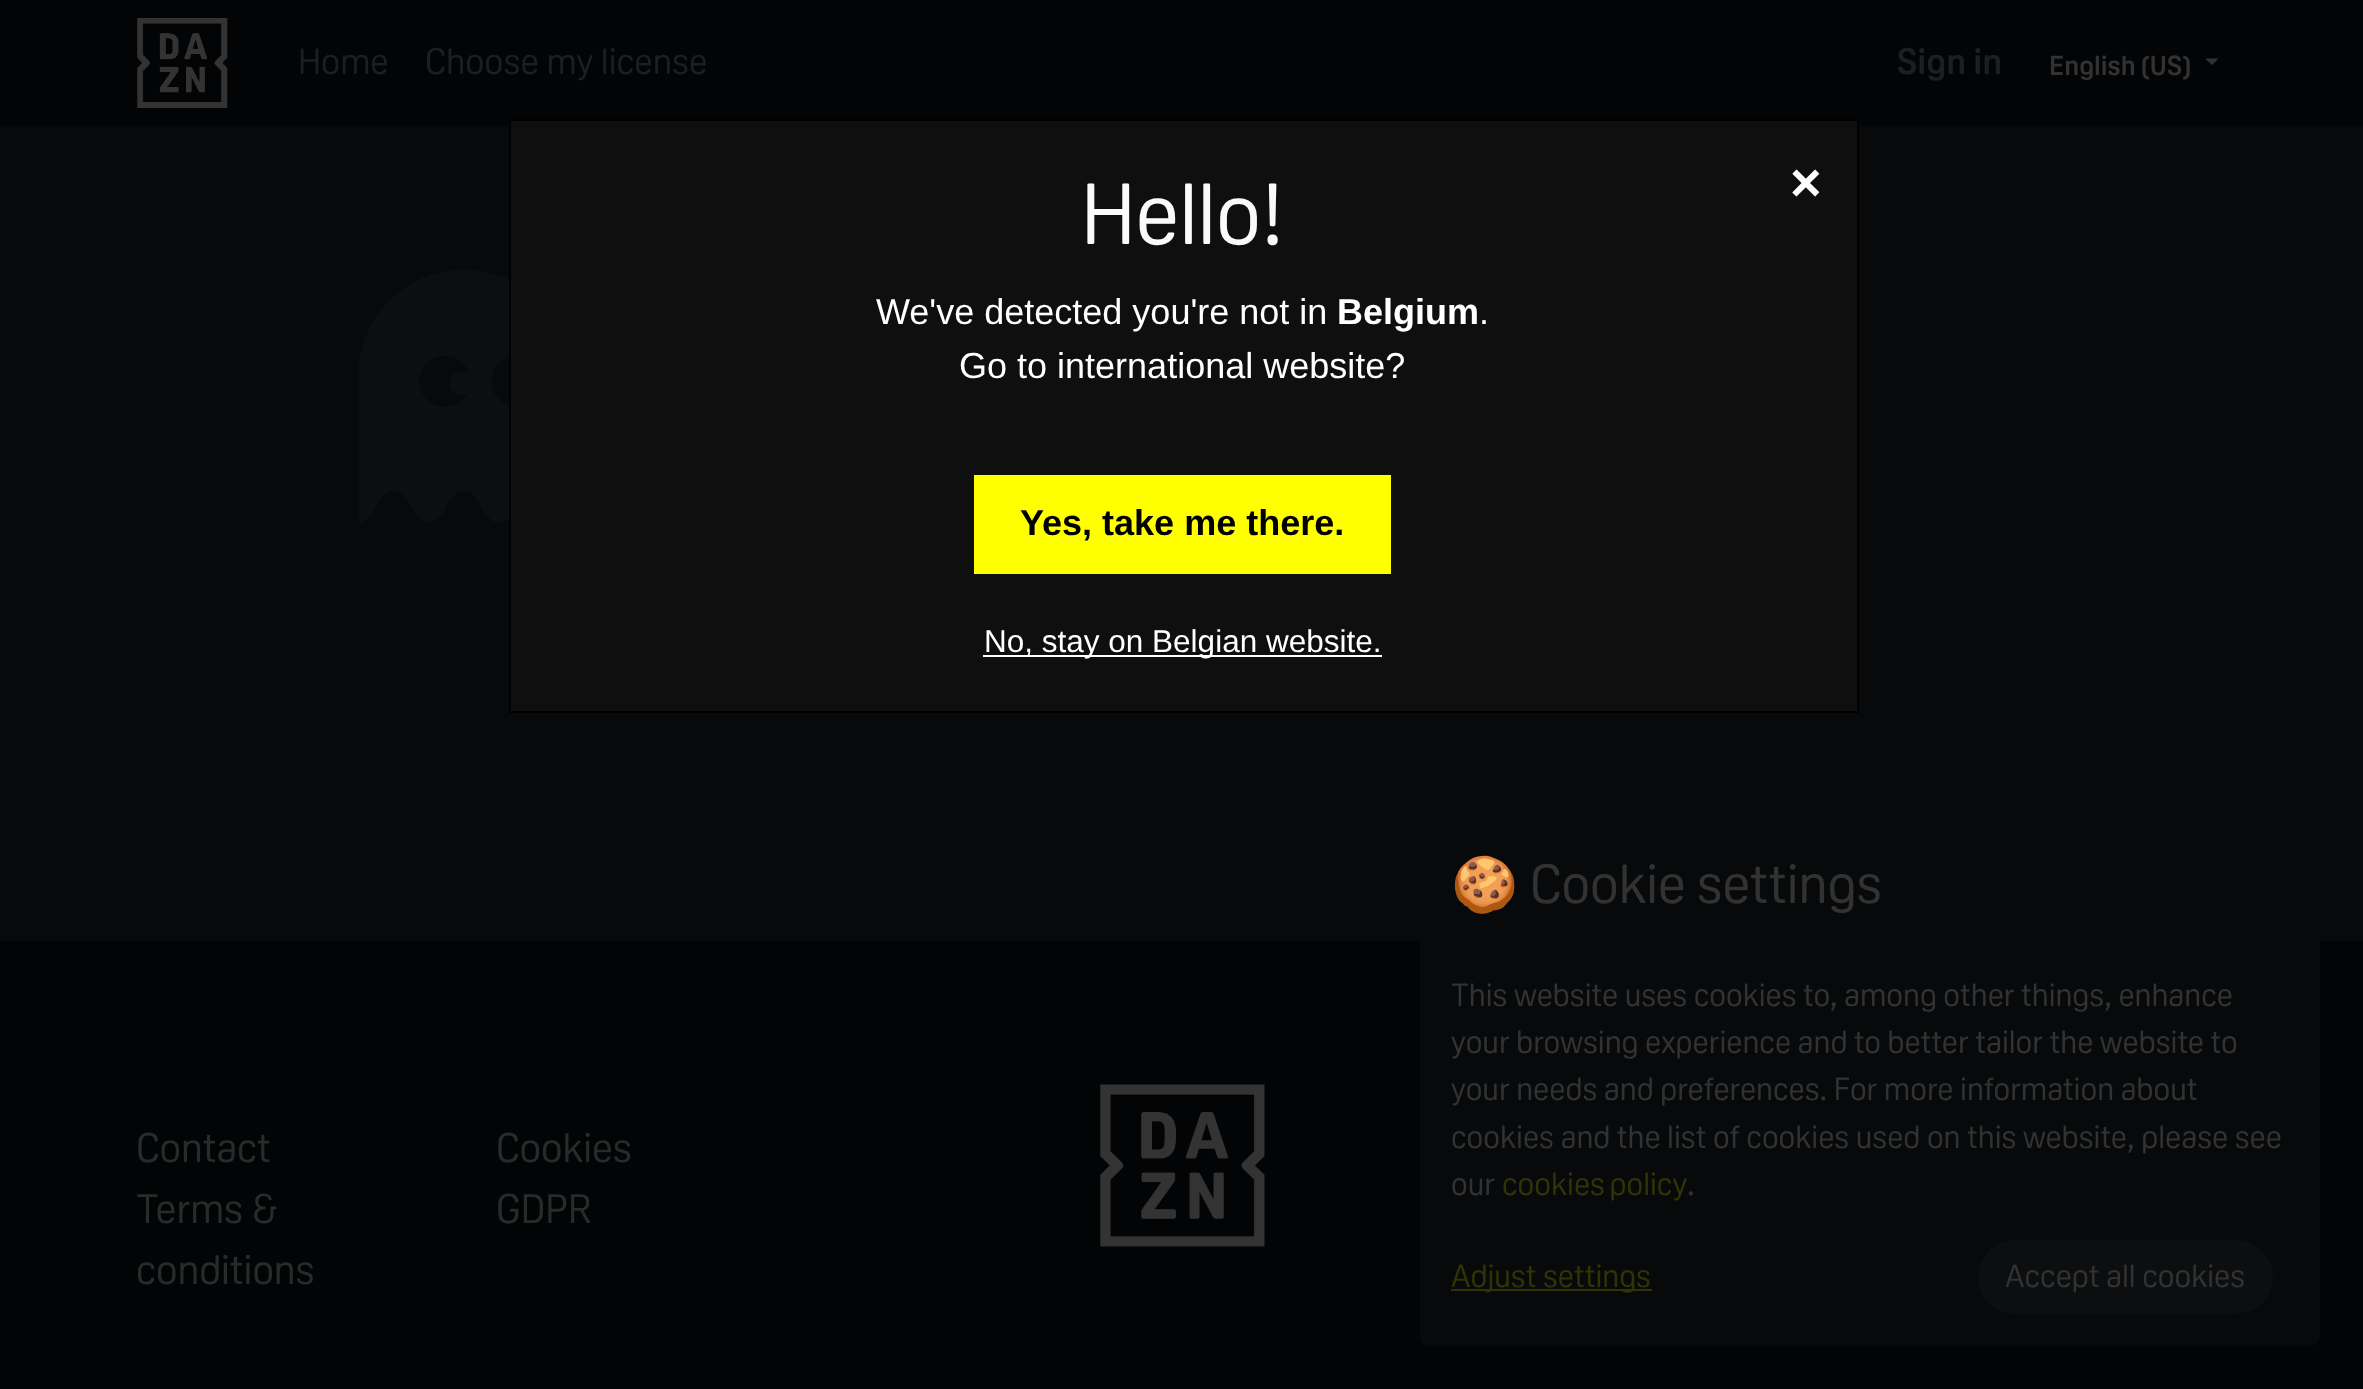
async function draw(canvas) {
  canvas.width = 2363
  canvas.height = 1389
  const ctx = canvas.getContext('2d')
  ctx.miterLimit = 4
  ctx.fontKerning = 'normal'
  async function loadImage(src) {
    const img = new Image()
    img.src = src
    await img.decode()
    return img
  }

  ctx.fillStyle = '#07090a'
  ctx.fillRect(0, 0, 2363, 1389)
  ctx.fillStyle = '#020406'
  ctx.fillRect(0, 0, 2363, 126)
  ctx.drawImage(await loadImage('image0.png'), 137, 18, 91, 90)
  ctx.font = '36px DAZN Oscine'
  ctx.fillStyle = '#1d1e1f'
  ctx.fillText('Home', 298, 74)
  ctx.fillText('Choose my license', 425, 74)
  ctx.font = 'bold 36px DAZN Oscine'
  ctx.fillText('Sign in', 1897, 74)
  ctx.font = 'bold 27px DAZN Oscine'
  ctx.fillStyle = '#323232'
  ctx.fillText('English (US)', 2049, 75)
  ctx.beginPath()
  ctx.moveTo(2205, 58.5)
  ctx.lineTo(2218.5, 58.5)
  ctx.lineTo(2212, 65)
  ctx.closePath()
  ctx.fill()
  ctx.drawImage(await loadImage('image1.png'), 139, 270, 370, 252)
  ctx.fillStyle = '#020406'
  ctx.fillRect(0, 941, 2363, 448)
  ctx.font = '40.5px DAZN Oscine'
  ctx.fillStyle = '#292a2a'
  ctx.fillText('Contact', 136, 1162)
  ctx.fillText('Terms &', 136, 1223)
  ctx.fillText('conditions', 136, 1284)
  ctx.fillText('Cookies', 496, 1162)
  ctx.fillText('GDPR', 496, 1223)
  ctx.drawImage(await loadImage('image2.png'), 1100, 1084, 165, 163)
  ctx.fillStyle = '#0f0f0f'
  ctx.beginPath()
  ctx.rect(510, 120, 1348, 592)
  ctx.fill()
  ctx.strokeStyle = '#000'
  ctx.lineWidth = 2
  ctx.stroke()
  ctx.font = '85px DAZN Oscine'
  ctx.fillStyle = '#f9fafa'
  ctx.fillText('Hello!', 1081, 244)
  ctx.font = 'bold 54px Liberation Sans'
  ctx.fillStyle = '#fff'
  ctx.fillText('×', 1790, 201)
  ctx.font = '36px Liberation Sans'
  ctx.fillText('We\'ve detected you\'re not in', 876, 324)
  ctx.font = 'bold 36px Liberation Sans'
  ctx.fillText('Belgium', 1337, 324)
  ctx.font = '36px Liberation Sans'
  ctx.fillText('.', 1479, 324)
  ctx.fillText('Go to international website?', 959, 378)
  ctx.fillStyle = '#ff0'
  ctx.fillRect(974, 475, 417, 99)
  ctx.font = 'bold 36px Liberation Sans'
  ctx.fillStyle = '#000'
  ctx.fillText('Yes, take me there.', 1020, 535)
  ctx.fillStyle = '#fff'
  ctx.fillRect(983, 655, 399, 2)
  ctx.font = '31.5px Liberation Sans'
  ctx.fillText('No, stay on Belgian website.', 984, 652)
  ctx.fillStyle = '#07090a'
  ctx.beginPath()
  ctx.roundRect(1420, 785, 900, 561, 9)
  ctx.fill()
  ctx.font = '54px Noto Color Emoji'
  ctx.fillStyle = '#323232'
  ctx.fillText('🍪', 1451, 903)
  ctx.font = '54px DAZN Oscine'
  ctx.fillText('Cookie settings', 1530, 903)
  ctx.font = '31.5px DAZN Oscine'
  ctx.fillText('This website uses cookies to, among other things, enhance', 1451, 1006)
  ctx.fillText('your browsing experience and to better tailor the website to', 1451, 1053)
  ctx.fillText('your needs and preferences. For more information about', 1451, 1100)
  ctx.fillText('cookies and the list of cookies used on this website, please see', 1451, 1148)
  ctx.fillText('our', 1451, 1195)
  ctx.wordSpacing = '-2px'
  ctx.fillStyle = '#313305'
  ctx.fillText('cookies policy', 1502, 1195)
  ctx.wordSpacing = '0px'
  ctx.fillStyle = '#323232'
  ctx.fillText('.', 1687, 1195)
  ctx.fillStyle = '#313305'
  ctx.fillRect(1451, 1289, 201, 2)
  ctx.fillText('Adjust settings', 1451, 1287)
  ctx.fillStyle = '#0c0e0f'
  ctx.beginPath()
  ctx.roundRect(1978, 1240, 295, 74, 37)
  ctx.fill()
  ctx.fillStyle = '#323232'
  ctx.fillText('Accept all cookies', 2005, 1287)
}

draw(document.querySelector('canvas'))
